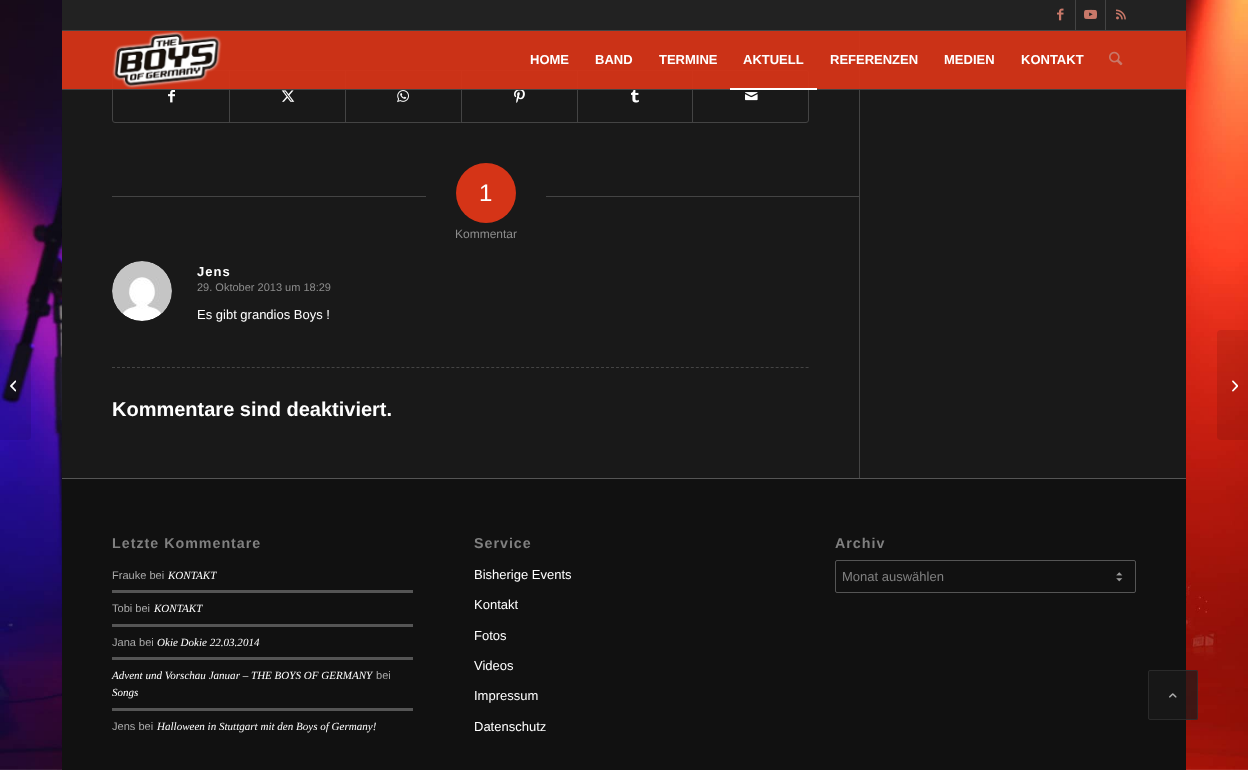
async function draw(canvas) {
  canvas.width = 1248
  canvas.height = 770
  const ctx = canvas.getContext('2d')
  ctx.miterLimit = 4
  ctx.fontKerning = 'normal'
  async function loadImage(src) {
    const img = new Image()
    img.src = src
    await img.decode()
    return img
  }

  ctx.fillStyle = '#fff'
  ctx.fillRect(0, 0, 1248, 770)
  ctx.drawImage(await loadImage('image0.png'), 0, 0, 1248, 770)
  ctx.fillStyle = '#222'
  ctx.fillRect(62, 0, 1124, 30)
  ctx.fillStyle = '#444'
  ctx.fillRect(62, 30, 1124, 1)
  ctx.fillRect(1075, 0, 1, 30)
  ctx.drawImage(await loadImage('image1.png'), 1057, 8, 7, 13)
  ctx.fillRect(1105, 0, 1, 30)
  ctx.drawImage(await loadImage('image2.png'), 1084, 9, 13, 10)
  ctx.drawImage(await loadImage('image3.png'), 1116, 9, 10, 11)
  ctx.fillStyle = '#191919'
  ctx.fillRect(62, 31, 1124, 447)
  ctx.fillStyle = '#444'
  ctx.fillRect(859, 31, 1, 447)
  ctx.beginPath()
  ctx.roundRect(112.5, 70.5, 696, 52, 2.5)
  ctx.strokeStyle = '#444'
  ctx.stroke()
  ctx.fillRect(229, 71, 1, 51)
  ctx.fillRect(345, 71, 1, 51)
  ctx.fillRect(461, 71, 1, 51)
  ctx.fillRect(577, 71, 1, 51)
  ctx.fillRect(692, 71, 1, 51)
  ctx.fillStyle = '#d53417f2'
  ctx.fillRect(62, 31, 1124, 58)
  ctx.fillStyle = '#444'
  ctx.fillRect(62, 89, 1124, 1)
  ctx.drawImage(await loadImage('image4.png'), 112, 31, 110, 58)
  ctx.font = 'bold 13px Liberation Sans'
  ctx.fillStyle = '#fff'
  ctx.fillText('HOME', 530, 64)
  ctx.fillText('BAND', 595, 64)
  ctx.fillText('TERMINE', 659, 64)
  ctx.fillText('AKTUELL', 743, 64)
  ctx.fillRect(730, 88, 87, 2)
  ctx.fillText('REFERENZEN', 830, 64)
  ctx.fillText('MEDIEN', 944, 64)
  ctx.fillText('KONTAKT', 1021, 64)
  ctx.drawImage(await loadImage('image5.png'), 1109, 51, 14, 15)
  ctx.fillStyle = '#0000001a'
  ctx.beginPath()
  ctx.roundRect(0, 330, 31, 110, [0, 4, 4, 0])
  ctx.fill()
  ctx.drawImage(await loadImage('image6.png'), 10, 380, 6, 12)
  ctx.drawImage(await loadImage('image7.png'), 168, 90, 7, 13)
  ctx.drawImage(await loadImage('image8.png'), 281, 90, 14, 12)
  ctx.drawImage(await loadImage('image9.png'), 397, 90, 12, 13)
  ctx.drawImage(await loadImage('image10.png'), 514, 90, 11, 13)
  ctx.drawImage(await loadImage('image11.png'), 631, 90, 8, 13)
  ctx.drawImage(await loadImage('image12.png'), 745, 92, 13, 9)
  ctx.fillStyle = '#444'
  ctx.fillRect(112, 196, 314, 1)
  ctx.fillStyle = '#d53417'
  ctx.beginPath()
  ctx.arc(486, 193, 30, 0, 2 * Math.PI)
  ctx.fill()
  ctx.font = '24px Liberation Sans'
  ctx.fillStyle = '#fff'
  ctx.fillText('1', 479, 201)
  ctx.fillStyle = '#444'
  ctx.fillRect(546, 196, 313, 1)
  ctx.font = '12px Liberation Sans'
  ctx.fillStyle = '#8c8c8c'
  ctx.fillText('Kommentar', 455, 238)
  ctx.beginPath()
  ctx.moveTo(112, 367.5)
  ctx.lineTo(809, 367.5)
  ctx.setLineDash([3, 1.99])
  ctx.stroke()
  ctx.drawImage(await loadImage('image13.png'), 112, 261, 60, 60)
  ctx.letterSpacing = '1px'
  ctx.font = 'bold 13px Liberation Sans'
  ctx.fillStyle = '#fff'
  ctx.fillText('Jens', 197, 276)
  ctx.letterSpacing = '0px'
  ctx.font = '11px Liberation Sans'
  ctx.fillStyle = '#8c8c8c'
  ctx.fillText('29. Oktober 2013 um 18:29', 197, 291)
  ctx.font = '13px Liberation Sans'
  ctx.fillStyle = '#fff'
  ctx.fillText('Es gibt grandios Boys !', 197, 319)
  ctx.font = 'bold 20px Liberation Sans'
  ctx.fillText('Kommentare sind deaktiviert.', 112, 416)
  ctx.fillStyle = '#111'
  ctx.fillRect(62, 479, 1124, 291)
  ctx.fillStyle = '#555'
  ctx.fillRect(62, 478, 1124, 1)
  ctx.letterSpacing = '1px'
  ctx.font = 'bold 14.25px Liberation Sans'
  ctx.fillStyle = '#808080'
  ctx.fillText('Letzte Kommentare', 112, 548)
  ctx.letterSpacing = '0px'
  ctx.font = '11.05px Liberation Sans'
  ctx.fillStyle = '#aaa'
  ctx.fillText('Frauke bei', 112, 579)
  ctx.font = 'italic 11.05px Liberation Serif'
  ctx.fillStyle = '#fff'
  ctx.fillText('KONTAKT', 168, 579)
  ctx.fillStyle = '#555'
  ctx.fillRect(112, 590, 301, 3)
  ctx.font = '11.05px Liberation Sans'
  ctx.fillStyle = '#aaa'
  ctx.fillText('Tobi bei', 112, 612)
  ctx.font = 'italic 11.05px Liberation Serif'
  ctx.fillStyle = '#fff'
  ctx.fillText('KONTAKT', 154, 612)
  ctx.fillStyle = '#555'
  ctx.fillRect(112, 624, 301, 3)
  ctx.font = '11.05px Liberation Sans'
  ctx.fillStyle = '#aaa'
  ctx.fillText('Jana bei', 112, 646)
  ctx.font = 'italic 11.05px Liberation Serif'
  ctx.fillStyle = '#fff'
  ctx.fillText('Okie Dokie 22.03.2014', 157, 646)
  ctx.fillStyle = '#555'
  ctx.fillRect(112, 657, 301, 3)
  ctx.fillStyle = '#fff'
  ctx.fillText('Advent und Vorschau Januar – THE BOYS OF GERMANY', 112, 679)
  ctx.font = '11.05px Liberation Sans'
  ctx.fillStyle = '#aaa'
  ctx.fillText('bei', 376, 679)
  ctx.font = 'italic 11.05px Liberation Serif'
  ctx.fillStyle = '#fff'
  ctx.fillText('Songs', 112, 696)
  ctx.fillStyle = '#555'
  ctx.fillRect(112, 708, 301, 3)
  ctx.font = '11.05px Liberation Sans'
  ctx.fillStyle = '#aaa'
  ctx.fillText('Jens bei', 112, 730)
  ctx.font = 'italic 11.05px Liberation Serif'
  ctx.fillStyle = '#fff'
  ctx.fillText('Halloween in Stuttgart mit den Boys of Germany!', 157, 730)
  ctx.letterSpacing = '1px'
  ctx.font = 'bold 14.25px Liberation Sans'
  ctx.fillStyle = '#808080'
  ctx.fillText('Service', 474, 548)
  ctx.letterSpacing = '0px'
  ctx.font = '13px Liberation Sans'
  ctx.fillStyle = '#fff'
  ctx.fillText('Bisherige Events', 474, 579)
  ctx.fillText('Kontakt', 474, 609)
  ctx.fillText('Fotos', 474, 640)
  ctx.fillText('Videos', 474, 670)
  ctx.fillText('Impressum', 474, 700)
  ctx.fillText('Datenschutz', 474, 731)
  ctx.letterSpacing = '1px'
  ctx.font = 'bold 14.25px Liberation Sans'
  ctx.fillStyle = '#808080'
  ctx.fillText('Archiv', 835, 548)
  ctx.drawImage(await loadImage('image14.png'), 1116, 572, 7, 10)
  ctx.beginPath()
  ctx.roundRect(835.5, 560.5, 300, 32, 1.5)
  ctx.strokeStyle = '#555'
  ctx.setLineDash([])
  ctx.stroke()
  ctx.letterSpacing = '0px'
  ctx.font = '13px Liberation Sans'
  ctx.fillText('Monat auswählen', 842, 581)
  ctx.fillStyle = '#0000001a'
  ctx.beginPath()
  ctx.roundRect(1217, 330, 31, 110, [4, 0, 0, 4])
  ctx.fill()
  ctx.drawImage(await loadImage('image15.png'), 1232, 380, 6, 12)
  ctx.fillStyle = '#191919b3'
  ctx.beginPath()
  ctx.roundRect(1148, 670, 50, 50, 2)
  ctx.fill()
  ctx.beginPath()
  ctx.roundRect(1148.5, 670.5, 49, 49, 1.5)
  ctx.strokeStyle = '#333333b3'
  ctx.stroke()
  ctx.drawImage(await loadImage('image16.png'), 1169, 693, 8, 5)
}

draw(document.querySelector('canvas'))
